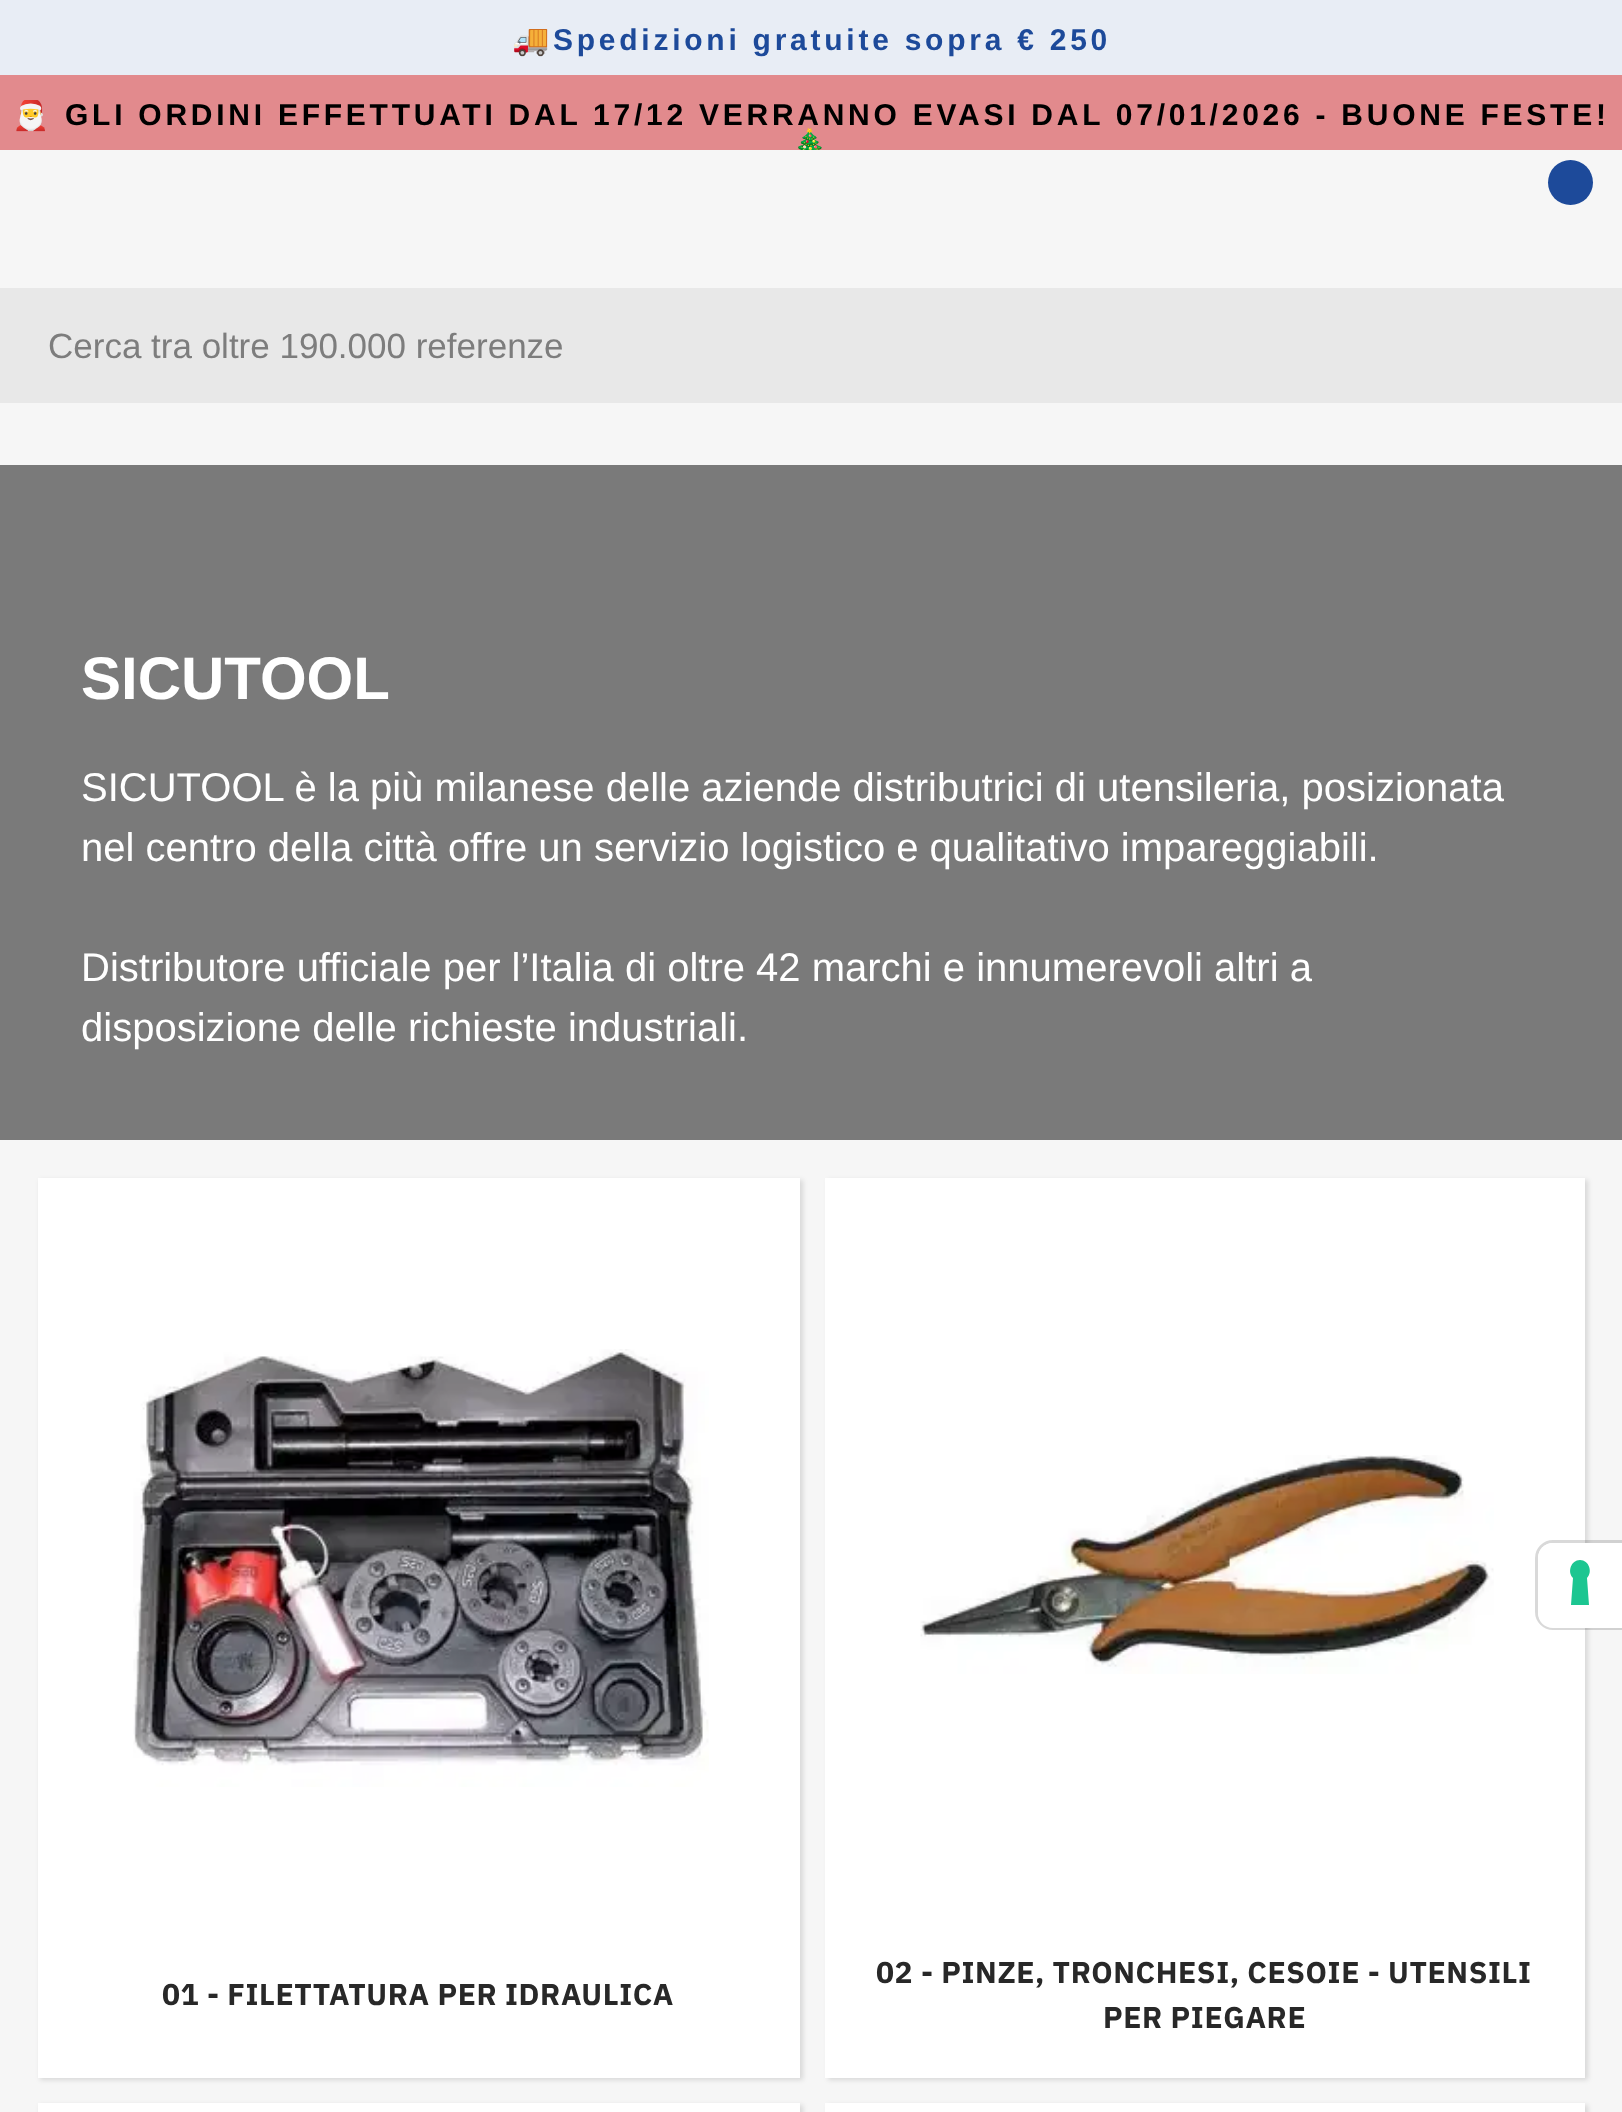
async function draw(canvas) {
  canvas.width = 1622
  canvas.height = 2112
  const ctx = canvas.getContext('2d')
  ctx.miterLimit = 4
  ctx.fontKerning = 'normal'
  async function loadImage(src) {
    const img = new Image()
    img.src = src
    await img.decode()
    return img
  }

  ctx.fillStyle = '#f6f6f6'
  ctx.fillRect(0, 0, 1622, 2112)
  ctx.fillStyle = '#e8edf5'
  ctx.fillRect(0, 0, 1622, 75)
  ctx.save()
  ctx.beginPath()
  ctx.rect(0, 25, 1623, 50)
  ctx.clip()
  ctx.letterSpacing = '3.75px'
  ctx.font = 'bold 30px Noto Color Emoji'
  ctx.fillStyle = '#1d4a9a'
  ctx.fillText('🚚', 512, 50)
  ctx.restore()
  ctx.letterSpacing = '3.75px'
  ctx.font = 'bold 30px Liberation Sans'
  ctx.fillStyle = '#1d4a9a'
  ctx.fillText('Spedizioni gratuite sopra € 250', 553, 50)
  ctx.fillStyle = '#e28a8d'
  ctx.fillRect(0, 75, 1622, 75)
  ctx.save()
  ctx.beginPath()
  ctx.rect(0, 100, 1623, 50)
  ctx.clip()
  ctx.font = 'bold 30px Noto Color Emoji'
  ctx.fillStyle = '#000'
  ctx.fillText('🎅', 12, 125)
  ctx.restore()
  ctx.fillStyle = '#000'
  ctx.fillText('GLI ORDINI EFFETTUATI DAL 17/12 VERRANNO EVASI DAL 07/01/2026 - BUONE FESTE!', 65, 125)
  ctx.save()
  ctx.beginPath()
  ctx.rect(0, 100, 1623, 50)
  ctx.clip()
  ctx.font = 'bold 30px Noto Color Emoji'
  ctx.fillText('🎄', 791, 155)
  ctx.restore()
  ctx.fillStyle = '#1d4a9a'
  ctx.beginPath()
  ctx.arc(1570.5, 182.5, 22.5, 0, 2 * Math.PI)
  ctx.fill()
  ctx.fillStyle = '#e8e8e8'
  ctx.fillRect(0, 288, 1622, 115)
  ctx.letterSpacing = '0px'
  ctx.font = '35px Liberation Sans'
  ctx.fillStyle = '#7d7d7d'
  ctx.fillText('Cerca tra oltre 190.000 referenze', 48, 358)
  ctx.fillStyle = '#7a7a7a'
  ctx.fillRect(0, 465, 1622, 675)
  ctx.font = 'bold 60px Liberation Sans'
  ctx.fillStyle = '#fff'
  ctx.fillText('SICUTOOL', 81, 699)
  ctx.font = '40px Liberation Sans'
  ctx.fillText('SICUTOOL è la più milanese delle aziende distributrici di utensileria, posizionata', 81, 801)
  ctx.fillText('nel centro della città offre un servizio logistico e qualitativo impareggiabili.', 81, 861)
  ctx.fillText('Distributore ufficiale per l’Italia di oltre 42 marchi e innumerevoli altri a', 81, 981)
  ctx.fillText('disposizione delle richieste industriali.', 81, 1041)
  ctx.fillStyle = '#0000001f'
  ctx.filter = 'blur(2.5px)'
  ctx.beginPath()
  ctx.rect(40, 1180, 763, 900)
  ctx.fill()
  ctx.filter = 'none'
  ctx.fillStyle = '#fff'
  ctx.fillRect(38, 1178, 762, 900)
  ctx.drawImage(await loadImage('image0.png'), 133, 1349, 576, 438)
  ctx.letterSpacing = '0.6px'
  ctx.font = 'bold 30px IBM Plex Sans'
  ctx.fillStyle = '#282828'
  ctx.fillText('01 - FILETTATURA PER IDRAULICA', 162, 2005)
  ctx.fillStyle = '#0000001f'
  ctx.filter = 'blur(2.5px)'
  ctx.beginPath()
  ctx.rect(828, 1180, 760, 900)
  ctx.fill()
  ctx.filter = 'none'
  ctx.fillStyle = '#fff'
  ctx.fillRect(825, 1178, 760, 900)
  ctx.drawImage(await loadImage('image1.png'), 920, 1455, 574, 219)
  ctx.fillStyle = '#282828'
  ctx.fillText('02 - PINZE, TRONCHESI, CESOIE - UTENSILI', 876, 1983)
  ctx.fillText('PER PIEGARE', 1103, 2028)
  ctx.fillStyle = '#0000001f'
  ctx.filter = 'blur(2.5px)'
  ctx.beginPath()
  ctx.rect(40, 2105, 763, 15)
  ctx.fill()
  ctx.filter = 'none'
  ctx.fillStyle = '#fff'
  ctx.fillRect(38, 2103, 762, 9)
  ctx.fillStyle = '#0000001f'
  ctx.filter = 'blur(2.5px)'
  ctx.beginPath()
  ctx.rect(828, 2105, 760, 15)
  ctx.fill()
  ctx.filter = 'none'
  ctx.fillStyle = '#fff'
  ctx.fillRect(825, 2103, 760, 9)
  ctx.beginPath()
  ctx.moveTo(1553, 1541.5)
  ctx.lineTo(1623.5, 1541.5)
  ctx.lineTo(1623.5, 1628.5)
  ctx.lineTo(1553, 1628.5)
  ctx.bezierCurveTo(1544, 1628.5, 1536.5, 1621, 1536.5, 1612)
  ctx.lineTo(1536.5, 1558)
  ctx.bezierCurveTo(1536.5, 1549, 1544, 1541.5, 1553, 1541.5)
  ctx.closePath()
  ctx.strokeStyle = '#00000026'
  ctx.lineWidth = 3
  ctx.stroke()
  ctx.beginPath()
  ctx.moveTo(1553, 1543)
  ctx.lineTo(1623, 1543)
  ctx.lineTo(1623, 1628)
  ctx.lineTo(1553, 1628)
  ctx.bezierCurveTo(1544.5, 1628, 1538, 1621.5, 1538, 1613)
  ctx.lineTo(1538, 1558)
  ctx.bezierCurveTo(1538, 1549.5, 1544.5, 1543, 1553, 1543)
  ctx.closePath()
  ctx.fill()
  ctx.fillStyle = '#1cc691'
  ctx.beginPath()
  ctx.moveTo(1580, 1560)
  ctx.bezierCurveTo(1589, 1560, 1593, 1572, 1587, 1578)
  ctx.lineTo(1589, 1605)
  ctx.lineTo(1571, 1605)
  ctx.lineTo(1573, 1578)
  ctx.bezierCurveTo(1567, 1572, 1571, 1560, 1580, 1560)
  ctx.closePath()
  ctx.fill('evenodd')
}

draw(document.querySelector('canvas'))
